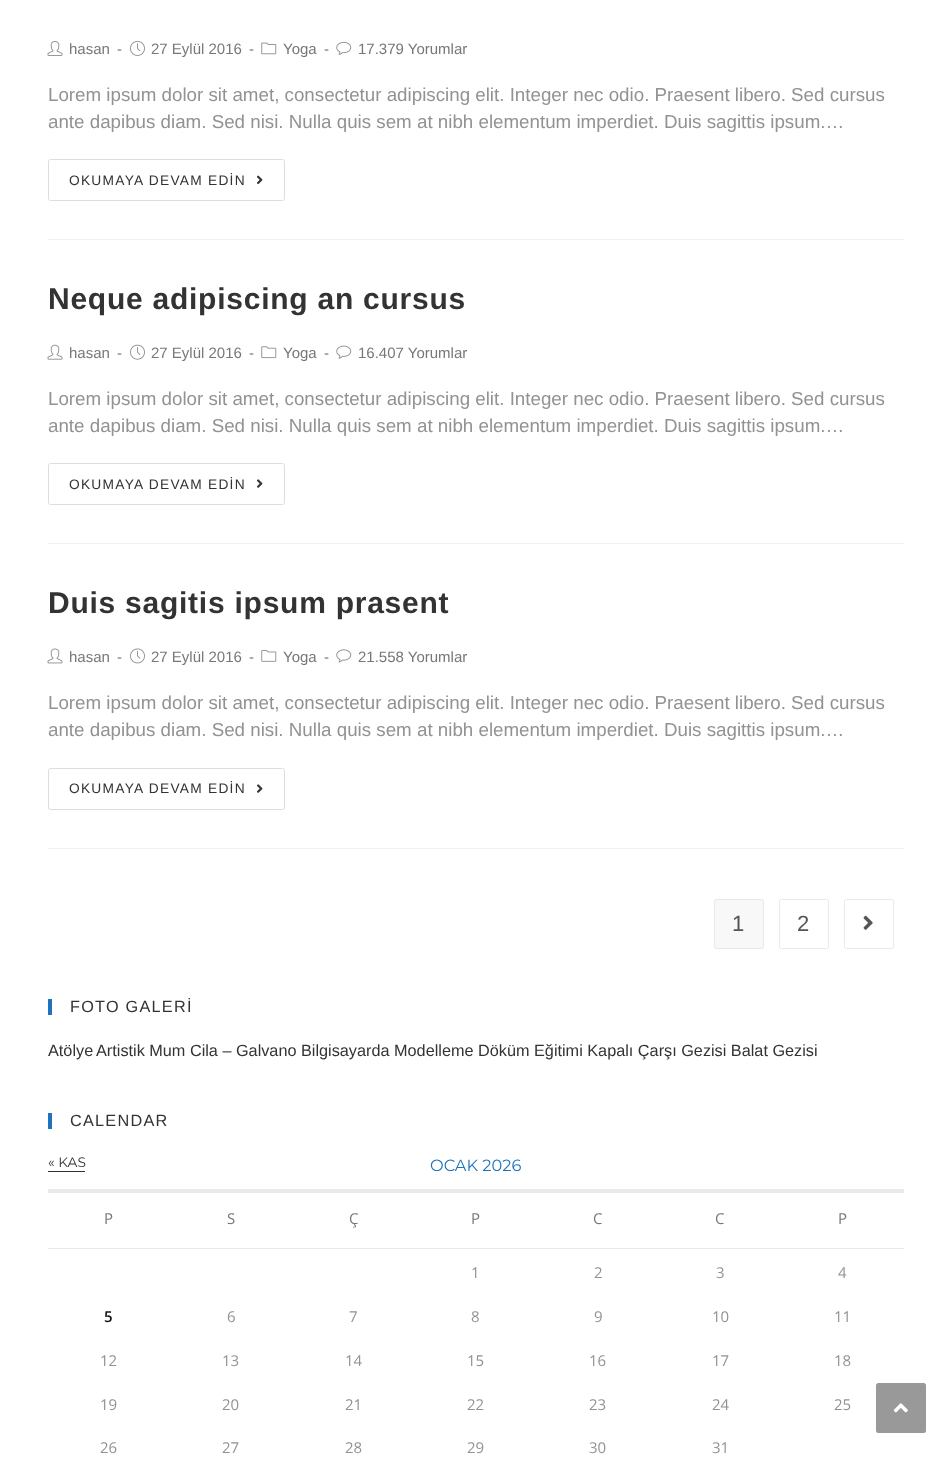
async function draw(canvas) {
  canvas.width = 951
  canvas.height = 1457
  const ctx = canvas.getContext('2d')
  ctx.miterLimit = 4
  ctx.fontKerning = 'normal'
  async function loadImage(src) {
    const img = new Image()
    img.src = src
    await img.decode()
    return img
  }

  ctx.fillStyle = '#fff'
  ctx.fillRect(0, 0, 951, 1457)
  ctx.fillStyle = '#f1f1f1'
  ctx.fillRect(48, 239, 856, 1)
  ctx.drawImage(await loadImage('image0.png'), 47, 41, 16, 15)
  ctx.font = '15px Liberation Sans'
  ctx.fillStyle = '#777'
  ctx.fillText('hasan', 69, 54)
  ctx.fillText('-', 117, 54)
  ctx.drawImage(await loadImage('image1.png'), 130, 41, 15, 15)
  ctx.fillText('27 Eylül 2016', 151, 54)
  ctx.fillText('-', 249, 54)
  ctx.drawImage(await loadImage('image2.png'), 261, 42, 16, 13)
  ctx.fillText('Yoga', 283, 54)
  ctx.fillText('-', 324, 54)
  ctx.drawImage(await loadImage('image3.png'), 336, 41, 16, 14)
  ctx.fillText('17.379 Yorumlar', 358, 54)
  ctx.font = '18.75px Liberation Sans'
  ctx.fillStyle = '#929292'
  ctx.fillText('Lorem ipsum dolor sit amet, consectetur adipiscing elit. Integer nec odio. Praesent libero. Sed cursus', 48, 101)
  ctx.fillText('ante dapibus diam. Sed nisi. Nulla quis sem at nibh elementum imperdiet. Duis sagittis ipsum.…', 48, 128)
  ctx.beginPath()
  ctx.roundRect(48.5, 159.5, 236, 41, 2)
  ctx.strokeStyle = '#ddd'
  ctx.stroke()
  ctx.letterSpacing = '1.25px'
  ctx.font = '13.75px Liberation Sans'
  ctx.fillStyle = '#333'
  ctx.fillText('OKUMAYA DEVAM EDİN', 69, 185)
  ctx.drawImage(await loadImage('image4.png'), 257, 175, 6, 10)
  ctx.fillStyle = '#f1f1f1'
  ctx.fillRect(48, 543, 856, 1)
  ctx.letterSpacing = '0.75px'
  ctx.font = 'bold 30px Liberation Sans'
  ctx.fillStyle = '#333'
  ctx.fillText('Neque adipiscing an cursus', 48, 309)
  ctx.drawImage(await loadImage('image5.png'), 47, 344, 16, 16)
  ctx.letterSpacing = '0px'
  ctx.font = '15px Liberation Sans'
  ctx.fillStyle = '#777'
  ctx.fillText('hasan', 69, 358)
  ctx.fillText('-', 117, 358)
  ctx.drawImage(await loadImage('image6.png'), 130, 344, 15, 16)
  ctx.fillText('27 Eylül 2016', 151, 358)
  ctx.fillText('-', 249, 358)
  ctx.drawImage(await loadImage('image7.png'), 261, 346, 16, 13)
  ctx.fillText('Yoga', 283, 358)
  ctx.fillText('-', 324, 358)
  ctx.drawImage(await loadImage('image8.png'), 336, 345, 16, 14)
  ctx.fillText('16.407 Yorumlar', 358, 358)
  ctx.font = '18.75px Liberation Sans'
  ctx.fillStyle = '#929292'
  ctx.fillText('Lorem ipsum dolor sit amet, consectetur adipiscing elit. Integer nec odio. Praesent libero. Sed cursus', 48, 405)
  ctx.fillText('ante dapibus diam. Sed nisi. Nulla quis sem at nibh elementum imperdiet. Duis sagittis ipsum.…', 48, 432)
  ctx.beginPath()
  ctx.roundRect(48.5, 463.5, 236, 41, 2)
  ctx.stroke()
  ctx.letterSpacing = '1.25px'
  ctx.font = '13.75px Liberation Sans'
  ctx.fillStyle = '#333'
  ctx.fillText('OKUMAYA DEVAM EDİN', 69, 489)
  ctx.drawImage(await loadImage('image9.png'), 257, 479, 6, 9)
  ctx.fillStyle = '#f1f1f1'
  ctx.fillRect(48, 848, 856, 1)
  ctx.letterSpacing = '0.75px'
  ctx.font = 'bold 30px Liberation Sans'
  ctx.fillStyle = '#333'
  ctx.fillText('Duis sagitis ipsum prasent', 48, 613)
  ctx.drawImage(await loadImage('image10.png'), 47, 648, 16, 16)
  ctx.letterSpacing = '0px'
  ctx.font = '15px Liberation Sans'
  ctx.fillStyle = '#777'
  ctx.fillText('hasan', 69, 662)
  ctx.fillText('-', 117, 662)
  ctx.drawImage(await loadImage('image11.png'), 130, 648, 15, 16)
  ctx.fillText('27 Eylül 2016', 151, 662)
  ctx.fillText('-', 249, 662)
  ctx.drawImage(await loadImage('image12.png'), 261, 650, 16, 12)
  ctx.fillText('Yoga', 283, 662)
  ctx.fillText('-', 324, 662)
  ctx.drawImage(await loadImage('image13.png'), 336, 649, 16, 14)
  ctx.fillText('21.558 Yorumlar', 358, 662)
  ctx.font = '18.75px Liberation Sans'
  ctx.fillStyle = '#929292'
  ctx.fillText('Lorem ipsum dolor sit amet, consectetur adipiscing elit. Integer nec odio. Praesent libero. Sed cursus', 48, 709)
  ctx.fillText('ante dapibus diam. Sed nisi. Nulla quis sem at nibh elementum imperdiet. Duis sagittis ipsum.…', 48, 736)
  ctx.beginPath()
  ctx.roundRect(48.5, 768.5, 236, 41, 2)
  ctx.stroke()
  ctx.letterSpacing = '1.25px'
  ctx.font = '13.75px Liberation Sans'
  ctx.fillStyle = '#333'
  ctx.fillText('OKUMAYA DEVAM EDİN', 69, 793)
  ctx.drawImage(await loadImage('image9.png'), 257, 784, 6, 9)
  ctx.fillStyle = '#f8f8f8'
  ctx.beginPath()
  ctx.roundRect(714.5, 899.5, 49, 49, 2)
  ctx.fill()
  ctx.strokeStyle = '#e9e9e9'
  ctx.stroke()
  ctx.letterSpacing = '0px'
  ctx.font = '22px Liberation Sans'
  ctx.fillStyle = '#555'
  ctx.fillText('1', 732, 931)
  ctx.beginPath()
  ctx.roundRect(779.5, 899.5, 49, 49, 2)
  ctx.stroke()
  ctx.fillText('2', 797, 931)
  ctx.beginPath()
  ctx.roundRect(844.5, 899.5, 49, 49, 2)
  ctx.stroke()
  ctx.drawImage(await loadImage('image14.png'), 863, 915, 10, 15)
  ctx.fillStyle = '#1e73be'
  ctx.fillRect(48, 999, 4, 16)
  ctx.letterSpacing = '1.25px'
  ctx.font = '16.25px Liberation Sans'
  ctx.fillStyle = '#333'
  ctx.fillText('FOTO GALERİ', 70, 1012)
  ctx.letterSpacing = '0px'
  ctx.fillText('Atölye', 48, 1056)
  ctx.fillText('Artistik Mum Cila – Galvano Bilgisayarda Modelleme Döküm Eğitimi Kapalı Çarşı Gezisi Balat Gezisi', 96, 1056)
  ctx.fillStyle = '#1e73be'
  ctx.fillRect(48, 1113, 4, 16)
  ctx.letterSpacing = '1.25px'
  ctx.fillStyle = '#333'
  ctx.fillText('CALENDAR', 70, 1126)
  ctx.letterSpacing = '0px'
  ctx.font = '13.75px Montserrat'
  ctx.fillText('« KAS', 48, 1167)
  ctx.fillRect(48, 1171, 37, 1)
  ctx.fillStyle = '#e9e9e9'
  ctx.fillRect(48, 1189, 856, 4)
  ctx.font = '16.25px Montserrat'
  ctx.fillStyle = '#1e73be'
  ctx.fillText('OCAK 2026', 430, 1171)
  ctx.font = '15px Open Sans'
  ctx.fillStyle = '#777'
  ctx.fillText('P', 104, 1224)
  ctx.fillText('S', 227, 1224)
  ctx.fillText('Ç', 349, 1224)
  ctx.fillText('P', 471, 1224)
  ctx.fillText('C', 593, 1224)
  ctx.fillText('C', 715, 1224)
  ctx.fillStyle = '#e9e9e9'
  ctx.fillRect(48, 1248, 856, 1)
  ctx.fillStyle = '#777'
  ctx.fillText('P', 838, 1224)
  ctx.fillStyle = '#929292'
  ctx.fillText('1', 471, 1278)
  ctx.fillText('2', 594, 1278)
  ctx.fillText('3', 716, 1278)
  ctx.fillText('4', 838, 1278)
  ctx.font = '600 15px Open Sans'
  ctx.fillStyle = '#111'
  ctx.fillText('5', 104, 1322)
  ctx.font = '15px Open Sans'
  ctx.fillStyle = '#929292'
  ctx.fillText('6', 227, 1322)
  ctx.fillText('7', 349, 1322)
  ctx.fillText('8', 471, 1322)
  ctx.fillText('9', 594, 1322)
  ctx.fillText('10', 712, 1322)
  ctx.fillText('11', 834, 1322)
  ctx.fillText('12', 100, 1366)
  ctx.fillText('13', 222, 1366)
  ctx.fillText('14', 345, 1366)
  ctx.fillText('15', 467, 1366)
  ctx.fillText('16', 589, 1366)
  ctx.fillText('17', 712, 1366)
  ctx.fillText('18', 834, 1366)
  ctx.fillText('19', 100, 1410)
  ctx.fillText('20', 222, 1410)
  ctx.fillText('21', 345, 1410)
  ctx.fillText('22', 467, 1410)
  ctx.fillText('23', 589, 1410)
  ctx.fillText('24', 712, 1410)
  ctx.fillText('25', 834, 1410)
  ctx.fillText('26', 100, 1453)
  ctx.fillText('27', 222, 1453)
  ctx.fillText('28', 345, 1453)
  ctx.fillText('29', 467, 1453)
  ctx.fillText('30', 589, 1453)
  ctx.fillText('31', 712, 1453)
  ctx.fillStyle = '#999'
  ctx.beginPath()
  ctx.roundRect(876, 1383, 50, 50, 2.5)
  ctx.fill()
  ctx.drawImage(await loadImage('image15.png'), 893, 1403, 15, 10)
}

draw(document.querySelector('canvas'))
